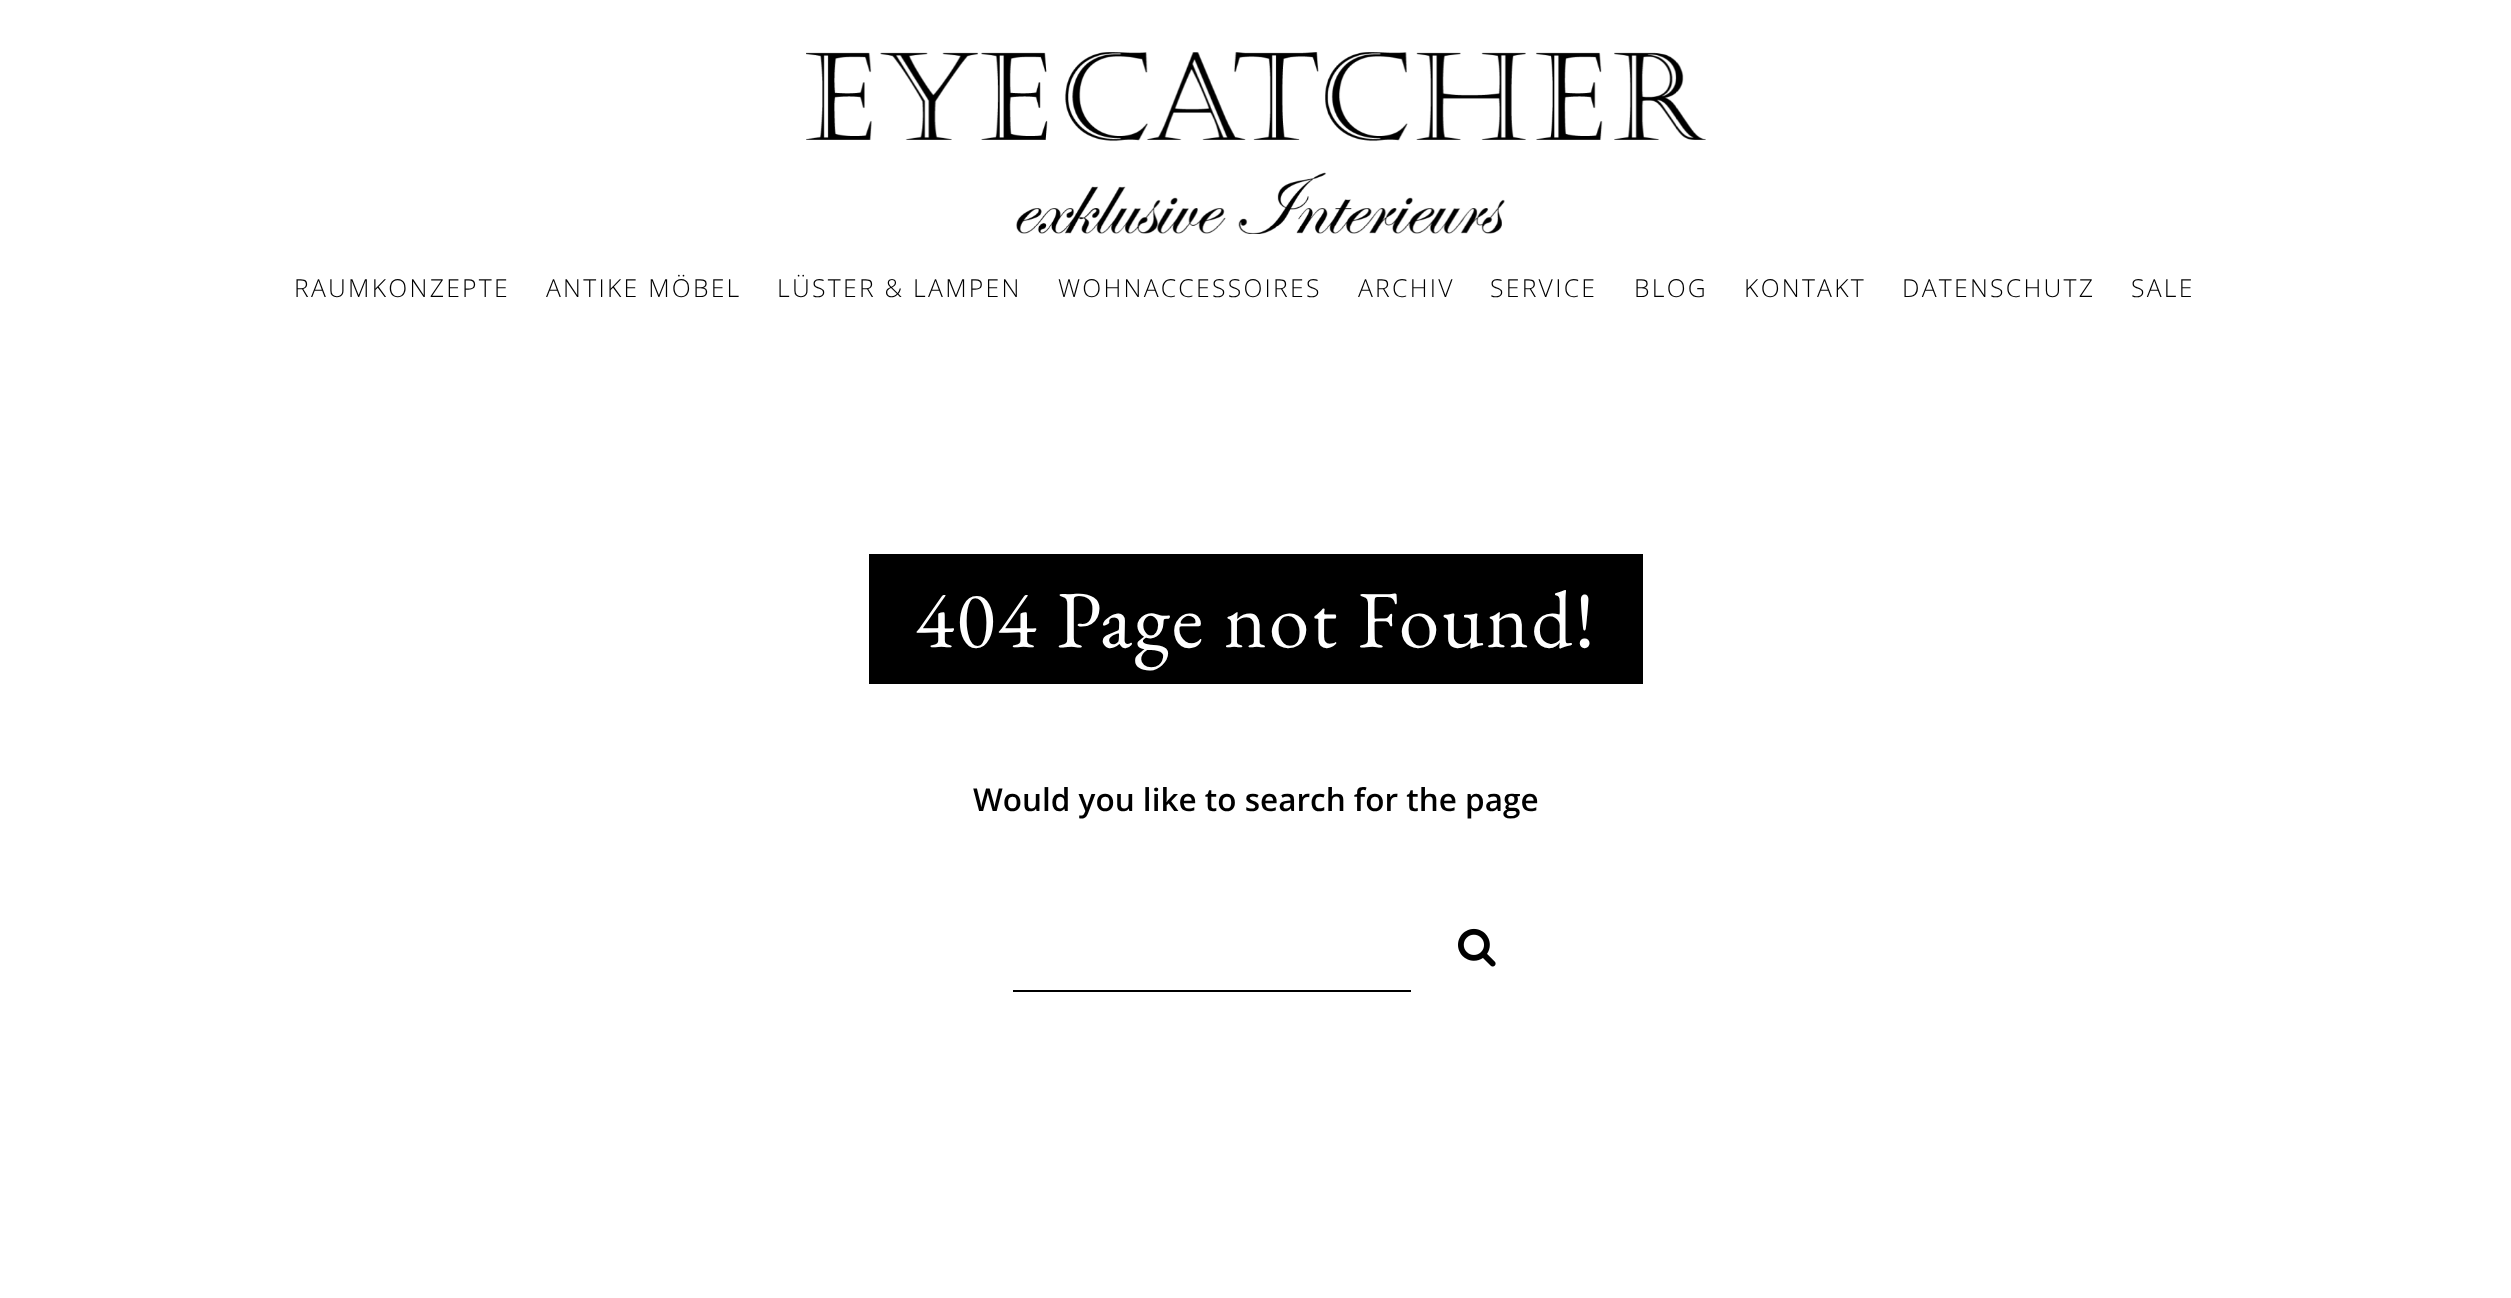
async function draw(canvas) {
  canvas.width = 2511
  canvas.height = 1298
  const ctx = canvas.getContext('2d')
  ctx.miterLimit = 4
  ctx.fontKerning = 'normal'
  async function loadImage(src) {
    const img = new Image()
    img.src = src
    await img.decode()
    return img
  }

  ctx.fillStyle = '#fff'
  ctx.fillRect(0, 0, 2511, 1298)
  ctx.drawImage(await loadImage('image0.png'), 806, 52, 900, 182)
  ctx.letterSpacing = '2.25px'
  ctx.font = '300 24.75px Open Sans'
  ctx.fillStyle = '#000'
  ctx.fillText('RAUMKONZEPTE', 294, 297)
  ctx.fillText('ANTIKE MÖBEL', 546, 297)
  ctx.fillText('LÜSTER & LAMPEN', 777, 297)
  ctx.fillText('WOHNACCESSOIRES', 1058, 297)
  ctx.fillText('ARCHIV', 1358, 297)
  ctx.fillText('SERVICE', 1490, 297)
  ctx.fillText('BLOG', 1634, 297)
  ctx.fillText('KONTAKT', 1744, 297)
  ctx.fillText('DATENSCHUTZ', 1902, 297)
  ctx.fillText('SALE', 2131, 297)
  ctx.fillRect(869, 554, 774, 130)
  ctx.font = '81px EB Garamond'
  ctx.fillStyle = '#fff'
  ctx.fillText('404 Page not Found!', 915, 647)
  ctx.letterSpacing = '0px'
  ctx.font = '600 31.5px Open Sans'
  ctx.fillStyle = '#000'
  ctx.fillText('Would you like to search for the page', 973, 811)
  ctx.drawImage(await loadImage('image1.png'), 1458, 928, 38, 39)
  ctx.fillRect(1013, 990, 398, 2)
}

draw(document.querySelector('canvas'))
